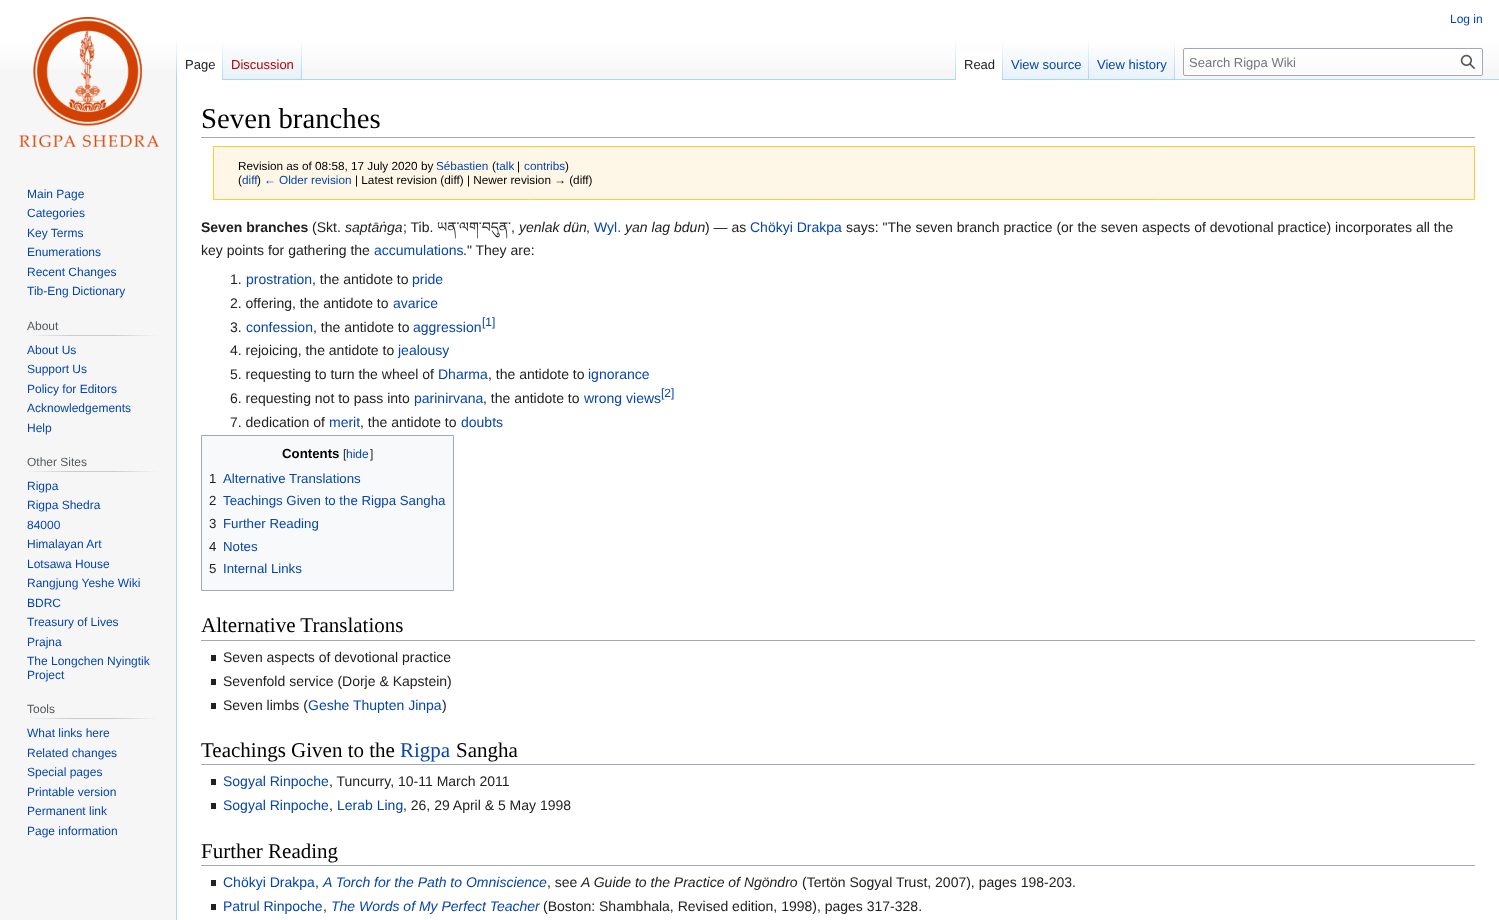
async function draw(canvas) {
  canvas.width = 1499
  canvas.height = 920
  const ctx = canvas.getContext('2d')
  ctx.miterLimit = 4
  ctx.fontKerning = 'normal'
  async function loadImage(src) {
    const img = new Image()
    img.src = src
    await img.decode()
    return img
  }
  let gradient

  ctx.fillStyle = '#f6f6f6'
  ctx.fillRect(0, 0, 1499, 920)
  gradient = ctx.createLinearGradient(750, 0, 750, 80)
  gradient.addColorStop(0.5, '#fff')
  gradient.addColorStop(1, '#f6f6f6')
  ctx.fillStyle = gradient
  ctx.fillRect(0, 0, 1499, 69)
  ctx.font = '12px Liberation Sans'
  ctx.fillStyle = '#0645ad'
  ctx.fillText('Log in', 1450, 23)
  ctx.fillStyle = '#a7d7f9'
  ctx.fillRect(176, 79, 1, 841)
  gradient = ctx.createLinearGradient(177, 40, 177, 80)
  gradient.addColorStop(0, '#a7d7f900')
  gradient.addColorStop(1, '#a7d7f9')
  ctx.fillStyle = gradient
  ctx.fillRect(176, 40, 1, 40)
  ctx.fillStyle = '#fff'
  ctx.fillRect(177, 51, 45, 29)
  gradient = ctx.createLinearGradient(223, 40, 223, 80)
  gradient.addColorStop(0, '#fff')
  gradient.addColorStop(1, '#a7d7f9')
  ctx.fillStyle = gradient
  ctx.fillRect(222, 40, 1, 40)
  ctx.font = '13px Liberation Sans'
  ctx.fillStyle = '#202122'
  ctx.fillText('Page', 185, 69)
  gradient = ctx.createLinearGradient(263, 80, 263, 40)
  gradient.addColorStop(0, '#77c1f6')
  gradient.addColorStop(0.03, '#e8f2f8')
  gradient.addColorStop(1, '#fff')
  ctx.fillStyle = gradient
  ctx.fillRect(223, 46, 79, 34)
  gradient = ctx.createLinearGradient(302, 40, 302, 80)
  gradient.addColorStop(0, '#a7d7f900')
  gradient.addColorStop(1, '#a7d7f9')
  ctx.fillStyle = gradient
  ctx.fillRect(301, 40, 1, 40)
  ctx.fillStyle = '#ba0000'
  ctx.fillText('Discussion', 231, 69)
  ctx.fillStyle = '#a7d7f9'
  ctx.fillRect(302, 79, 1197, 1)
  gradient = ctx.createLinearGradient(956, 40, 956, 80)
  gradient.addColorStop(0, '#a7d7f900')
  gradient.addColorStop(1, '#a7d7f9')
  ctx.fillStyle = gradient
  ctx.fillRect(955, 40, 1, 40)
  ctx.fillStyle = '#fff'
  ctx.fillRect(956, 51, 46, 29)
  gradient = ctx.createLinearGradient(1003, 40, 1003, 80)
  gradient.addColorStop(0, '#fff')
  gradient.addColorStop(1, '#a7d7f9')
  ctx.fillStyle = gradient
  ctx.fillRect(1002, 40, 1, 40)
  ctx.fillStyle = '#202122'
  ctx.fillText('Read', 964, 69)
  gradient = ctx.createLinearGradient(1046, 80, 1046, 40)
  gradient.addColorStop(0, '#77c1f6')
  gradient.addColorStop(0.03, '#e8f2f8')
  gradient.addColorStop(1, '#fff')
  ctx.fillStyle = gradient
  ctx.fillRect(1003, 46, 86, 33)
  gradient = ctx.createLinearGradient(1089, 40, 1089, 80)
  gradient.addColorStop(0, '#a7d7f900')
  gradient.addColorStop(1, '#a7d7f9')
  ctx.fillStyle = gradient
  ctx.fillRect(1088, 40, 1, 40)
  ctx.fillStyle = '#0645ad'
  ctx.fillText('View source', 1011, 69)
  gradient = ctx.createLinearGradient(1132, 80, 1132, 40)
  gradient.addColorStop(0, '#77c1f6')
  gradient.addColorStop(0.03, '#e8f2f8')
  gradient.addColorStop(1, '#fff')
  ctx.fillStyle = gradient
  ctx.fillRect(1089, 46, 86, 33)
  gradient = ctx.createLinearGradient(1175, 40, 1175, 80)
  gradient.addColorStop(0, '#a7d7f900')
  gradient.addColorStop(1, '#a7d7f9')
  ctx.fillStyle = gradient
  ctx.fillRect(1174, 40, 1, 40)
  ctx.fillStyle = '#0645ad'
  ctx.fillText('View history', 1097, 69)
  ctx.fillStyle = '#ffffff80'
  ctx.beginPath()
  ctx.roundRect(1183.5, 48.5, 299, 27, 1.5)
  ctx.fill()
  ctx.strokeStyle = '#a2a9b1'
  ctx.stroke()
  ctx.fillStyle = '#72777d'
  ctx.fillText('Search Rigpa Wiki', 1189, 67)
  ctx.drawImage(await loadImage('image0.png'), 1460, 54, 15, 15)
  ctx.drawImage(await loadImage('image1.png'), 19, 17, 141, 131)
  ctx.font = '12px Liberation Sans'
  ctx.fillStyle = '#0645ad'
  ctx.fillText('Main Page', 27, 198)
  ctx.fillText('Categories', 27, 217)
  ctx.fillText('Key Terms', 27, 237)
  ctx.fillText('Enumerations', 27, 256)
  ctx.fillText('Recent Changes', 27, 276)
  ctx.fillText('Tib-Eng Dictionary', 27, 295)
  gradient = ctx.createLinearGradient(27, 336, 158, 336)
  gradient.addColorStop(0, '#f6f6f6')
  gradient.addColorStop(0.33, '#c8ccd1')
  gradient.addColorStop(0.66, '#c8ccd1')
  gradient.addColorStop(1, '#f6f6f6')
  ctx.fillStyle = gradient
  ctx.fillRect(27, 335, 131, 1)
  ctx.fillStyle = '#54595d'
  ctx.fillText('About', 27, 330)
  ctx.fillStyle = '#0645ad'
  ctx.fillText('About Us', 27, 354)
  ctx.fillText('Support Us', 27, 373)
  ctx.fillText('Policy for Editors', 27, 393)
  ctx.fillText('Acknowledgements', 27, 412)
  ctx.fillText('Help', 27, 432)
  gradient = ctx.createLinearGradient(27, 472, 158, 472)
  gradient.addColorStop(0, '#f6f6f6')
  gradient.addColorStop(0.33, '#c8ccd1')
  gradient.addColorStop(0.66, '#c8ccd1')
  gradient.addColorStop(1, '#f6f6f6')
  ctx.fillStyle = gradient
  ctx.fillRect(27, 471, 131, 1)
  ctx.fillStyle = '#54595d'
  ctx.fillText('Other Sites', 27, 466)
  ctx.fillStyle = '#0645ad'
  ctx.fillText('Rigpa', 27, 490)
  ctx.fillText('Rigpa Shedra', 27, 509)
  ctx.fillText('84000', 27, 529)
  ctx.fillText('Himalayan Art', 27, 548)
  ctx.fillText('Lotsawa House', 27, 568)
  ctx.fillText('Rangjung Yeshe Wiki', 27, 587)
  ctx.fillText('BDRC', 27, 607)
  ctx.fillText('Treasury of Lives', 27, 626)
  ctx.fillText('Prajna', 27, 646)
  ctx.fillText('The Longchen Nyingtik', 27, 665)
  ctx.fillText('Project', 27, 679)
  gradient = ctx.createLinearGradient(27, 719, 158, 719)
  gradient.addColorStop(0, '#f6f6f6')
  gradient.addColorStop(0.33, '#c8ccd1')
  gradient.addColorStop(0.66, '#c8ccd1')
  gradient.addColorStop(1, '#f6f6f6')
  ctx.fillStyle = gradient
  ctx.fillRect(27, 718, 131, 1)
  ctx.fillStyle = '#54595d'
  ctx.fillText('Tools', 27, 713)
  ctx.fillStyle = '#0645ad'
  ctx.fillText('What links here', 27, 737)
  ctx.fillText('Related changes', 27, 757)
  ctx.fillText('Special pages', 27, 776)
  ctx.fillText('Printable version', 27, 796)
  ctx.fillText('Permanent link', 27, 815)
  ctx.fillText('Page information', 27, 835)
  ctx.fillStyle = '#fff'
  ctx.fillRect(177, 80, 1322, 840)
  ctx.fillStyle = '#a2a9b1'
  ctx.fillRect(201, 137, 1274, 1)
  ctx.font = '28.75px Liberation Serif'
  ctx.fillStyle = '#000'
  ctx.fillText('Seven branches', 201, 128)
  ctx.fillStyle = '#fef6e7'
  ctx.beginPath()
  ctx.rect(213.5, 146.5, 1261, 53)
  ctx.fill()
  ctx.strokeStyle = '#fc3'
  ctx.stroke()
  ctx.font = '11.75px Liberation Sans'
  ctx.fillStyle = '#000'
  ctx.fillText('Revision as of 08:58, 17 July 2020 by', 238, 170)
  ctx.fillStyle = '#0645ad'
  ctx.fillText('Sébastien', 436, 170)
  ctx.fillStyle = '#000'
  ctx.fillText('(', 492, 170)
  ctx.fillStyle = '#0645ad'
  ctx.fillText('talk', 496, 170)
  ctx.fillStyle = '#000'
  ctx.fillText('|', 517, 170)
  ctx.fillStyle = '#0645ad'
  ctx.fillText('contribs', 524, 170)
  ctx.fillStyle = '#000'
  ctx.fillText(')', 565, 170)
  ctx.fillText('(', 238, 184)
  ctx.fillStyle = '#0645ad'
  ctx.fillText('diff', 242, 184)
  ctx.fillStyle = '#000'
  ctx.fillText(')', 257, 184)
  ctx.fillStyle = '#0645ad'
  ctx.fillText('← Older revision', 264, 184)
  ctx.fillStyle = '#000'
  ctx.fillText('| Latest revision (diff) | Newer revision → (diff)', 355, 184)
  ctx.font = 'bold 14px Liberation Sans'
  ctx.fillStyle = '#202122'
  ctx.fillText('Seven branches', 201, 232)
  ctx.font = '14px Liberation Sans'
  ctx.fillText('(Skt.', 312, 232)
  ctx.font = 'italic 14px Liberation Sans'
  ctx.fillText('saptāṅga', 345, 232)
  ctx.font = '14px Liberation Sans'
  ctx.fillText('; Tib.', 403, 232)
  ctx.font = '14px Noto Serif Tibetan'
  ctx.fillText('ཡན་ལག་བདུན་', 437, 232)
  ctx.font = '14px Liberation Sans'
  ctx.fillText(',', 511, 232)
  ctx.font = 'italic 14px Liberation Sans'
  ctx.fillText('yenlak dün', 519, 232)
  ctx.font = '14px Liberation Sans'
  ctx.fillText(',', 586, 232)
  ctx.fillStyle = '#0645ad'
  ctx.fillText('Wyl.', 594, 232)
  ctx.font = 'italic 14px Liberation Sans'
  ctx.fillStyle = '#202122'
  ctx.fillText('yan lag bdun', 625, 232)
  ctx.font = '14px Liberation Sans'
  ctx.fillText(') — as', 705, 232)
  ctx.fillStyle = '#0645ad'
  ctx.fillText('Chökyi Drakpa', 750, 232)
  ctx.fillStyle = '#202122'
  ctx.fillText('says: "The seven branch practice (or the seven aspects of devotional practice) incorporates all the', 846, 232)
  ctx.fillText('key points for gathering the', 201, 255)
  ctx.fillStyle = '#0645ad'
  ctx.fillText('accumulations', 374, 255)
  ctx.fillStyle = '#202122'
  ctx.fillText('." They are:', 463, 255)
  ctx.fillText('1.', 230, 284)
  ctx.fillStyle = '#0645ad'
  ctx.fillText('prostration', 246, 284)
  ctx.fillStyle = '#202122'
  ctx.fillText(', the antidote to', 312, 284)
  ctx.fillStyle = '#0645ad'
  ctx.fillText('pride', 412, 284)
  ctx.fillStyle = '#202122'
  ctx.fillText('2. offering, the antidote to', 230, 308)
  ctx.fillStyle = '#0645ad'
  ctx.fillText('avarice', 393, 308)
  ctx.fillStyle = '#202122'
  ctx.fillText('3.', 230, 332)
  ctx.fillStyle = '#0645ad'
  ctx.fillText('confession', 246, 332)
  ctx.fillStyle = '#202122'
  ctx.fillText(', the antidote to', 313, 332)
  ctx.fillStyle = '#0645ad'
  ctx.fillText('aggression', 413, 332)
  ctx.font = '12px Liberation Sans'
  ctx.fillText('[1]', 482, 326)
  ctx.font = '14px Liberation Sans'
  ctx.fillStyle = '#202122'
  ctx.fillText('4. rejoicing, the antidote to', 230, 355)
  ctx.fillStyle = '#0645ad'
  ctx.fillText('jealousy', 398, 355)
  ctx.fillStyle = '#202122'
  ctx.fillText('5. requesting to turn the wheel of', 230, 379)
  ctx.fillStyle = '#0645ad'
  ctx.fillText('Dharma', 438, 379)
  ctx.fillStyle = '#202122'
  ctx.fillText(', the antidote to', 488, 379)
  ctx.fillStyle = '#0645ad'
  ctx.fillText('ignorance', 588, 379)
  ctx.fillStyle = '#202122'
  ctx.fillText('6. requesting not to pass into', 230, 403)
  ctx.fillStyle = '#0645ad'
  ctx.fillText('parinirvana', 414, 403)
  ctx.fillStyle = '#202122'
  ctx.fillText(', the antidote to', 483, 403)
  ctx.fillStyle = '#0645ad'
  ctx.fillText('wrong views', 584, 403)
  ctx.font = '12px Liberation Sans'
  ctx.fillText('[2]', 661, 397)
  ctx.font = '14px Liberation Sans'
  ctx.fillStyle = '#202122'
  ctx.fillText('7. dedication of', 230, 427)
  ctx.fillStyle = '#0645ad'
  ctx.fillText('merit', 329, 427)
  ctx.fillStyle = '#202122'
  ctx.fillText(', the antidote to', 360, 427)
  ctx.fillStyle = '#0645ad'
  ctx.fillText('doubts', 461, 427)
  ctx.fillStyle = '#f8f9fa'
  ctx.beginPath()
  ctx.rect(201.5, 435.5, 252, 155)
  ctx.fill()
  ctx.strokeStyle = '#a2a9b1'
  ctx.stroke()
  ctx.font = 'bold 13.25px Liberation Sans'
  ctx.fillStyle = '#000'
  ctx.fillText('Contents', 282, 458)
  ctx.font = '12px Liberation Sans'
  ctx.fillStyle = '#202122'
  ctx.fillText('[', 343, 458)
  ctx.fillStyle = '#0645ad'
  ctx.fillText('hide', 346, 458)
  ctx.fillStyle = '#202122'
  ctx.fillText(']', 370, 458)
  ctx.font = '13.25px Liberation Sans'
  ctx.fillText('1', 209, 483)
  ctx.fillStyle = '#0645ad'
  ctx.fillText('Alternative Translations', 223, 483)
  ctx.fillStyle = '#202122'
  ctx.fillText('2', 209, 505)
  ctx.fillStyle = '#0645ad'
  ctx.fillText('Teachings Given to the Rigpa Sangha', 223, 505)
  ctx.fillStyle = '#202122'
  ctx.fillText('3', 209, 528)
  ctx.fillStyle = '#0645ad'
  ctx.fillText('Further Reading', 223, 528)
  ctx.fillStyle = '#202122'
  ctx.fillText('4', 209, 551)
  ctx.fillStyle = '#0645ad'
  ctx.fillText('Notes', 223, 551)
  ctx.fillStyle = '#202122'
  ctx.fillText('5', 209, 573)
  ctx.fillStyle = '#0645ad'
  ctx.fillText('Internal Links', 223, 573)
  ctx.fillStyle = '#a2a9b1'
  ctx.fillRect(201, 640, 1274, 1)
  ctx.font = '21px Liberation Serif'
  ctx.fillStyle = '#000'
  ctx.fillText('Alternative Translations', 201, 632)
  ctx.fillStyle = '#202122'
  ctx.fillRect(211, 655, 5, 6)
  ctx.font = '14px Liberation Sans'
  ctx.fillText('Seven aspects of devotional practice', 223, 662)
  ctx.fillRect(211, 679, 5, 6)
  ctx.fillText('Sevenfold service (Dorje & Kapstein)', 223, 686)
  ctx.fillRect(211, 703, 5, 6)
  ctx.fillText('Seven limbs (', 223, 710)
  ctx.fillStyle = '#0645ad'
  ctx.fillText('Geshe Thupten Jinpa', 308, 710)
  ctx.fillStyle = '#202122'
  ctx.fillText(')', 442, 710)
  ctx.fillStyle = '#a2a9b1'
  ctx.fillRect(201, 764, 1274, 1)
  ctx.font = '21px Liberation Serif'
  ctx.fillStyle = '#000'
  ctx.fillText('Teachings Given to the', 201, 757)
  ctx.fillStyle = '#0645ad'
  ctx.fillText('Rigpa', 400, 757)
  ctx.fillStyle = '#000'
  ctx.fillText('Sangha', 456, 757)
  ctx.fillStyle = '#202122'
  ctx.fillRect(211, 779, 5, 6)
  ctx.font = '14px Liberation Sans'
  ctx.fillStyle = '#0645ad'
  ctx.fillText('Sogyal Rinpoche', 223, 786)
  ctx.fillStyle = '#202122'
  ctx.fillText(', Tuncurry, 10-11 March 2011', 329, 786)
  ctx.fillRect(211, 803, 5, 6)
  ctx.fillStyle = '#0645ad'
  ctx.fillText('Sogyal Rinpoche', 223, 810)
  ctx.fillStyle = '#202122'
  ctx.fillText(',', 329, 810)
  ctx.fillStyle = '#0645ad'
  ctx.fillText('Lerab Ling', 337, 810)
  ctx.fillStyle = '#202122'
  ctx.fillText(', 26, 29 April & 5 May 1998', 403, 810)
  ctx.fillStyle = '#a2a9b1'
  ctx.fillRect(201, 865, 1274, 1)
  ctx.font = '21px Liberation Serif'
  ctx.fillStyle = '#000'
  ctx.fillText('Further Reading', 201, 858)
  ctx.fillStyle = '#202122'
  ctx.fillRect(211, 880, 5, 6)
  ctx.font = '14px Liberation Sans'
  ctx.fillStyle = '#0645ad'
  ctx.fillText('Chökyi Drakpa', 223, 887)
  ctx.fillStyle = '#202122'
  ctx.fillText(',', 315, 887)
  ctx.font = 'italic 14px Liberation Sans'
  ctx.fillStyle = '#0645ad'
  ctx.fillText('A Torch for the Path to Omniscience', 323, 887)
  ctx.font = '14px Liberation Sans'
  ctx.fillStyle = '#202122'
  ctx.fillText(', see', 547, 887)
  ctx.font = 'italic 14px Liberation Sans'
  ctx.fillText('A Guide to the Practice of Ngöndro', 581, 887)
  ctx.font = '14px Liberation Sans'
  ctx.fillText('(Tertön Sogyal Trust, 2007), pages 198-203.', 802, 887)
  ctx.fillRect(211, 904, 5, 6)
  ctx.fillStyle = '#0645ad'
  ctx.fillText('Patrul Rinpoche', 223, 911)
  ctx.fillStyle = '#202122'
  ctx.fillText(',', 323, 911)
  ctx.font = 'italic 14px Liberation Sans'
  ctx.fillStyle = '#0645ad'
  ctx.fillText('The Words of My Perfect Teacher', 331, 911)
  ctx.font = '14px Liberation Sans'
  ctx.fillStyle = '#202122'
  ctx.fillText('(Boston: Shambhala, Revised edition, 1998), pages 317-328.', 543, 911)
}

draw(document.querySelector('canvas'))
